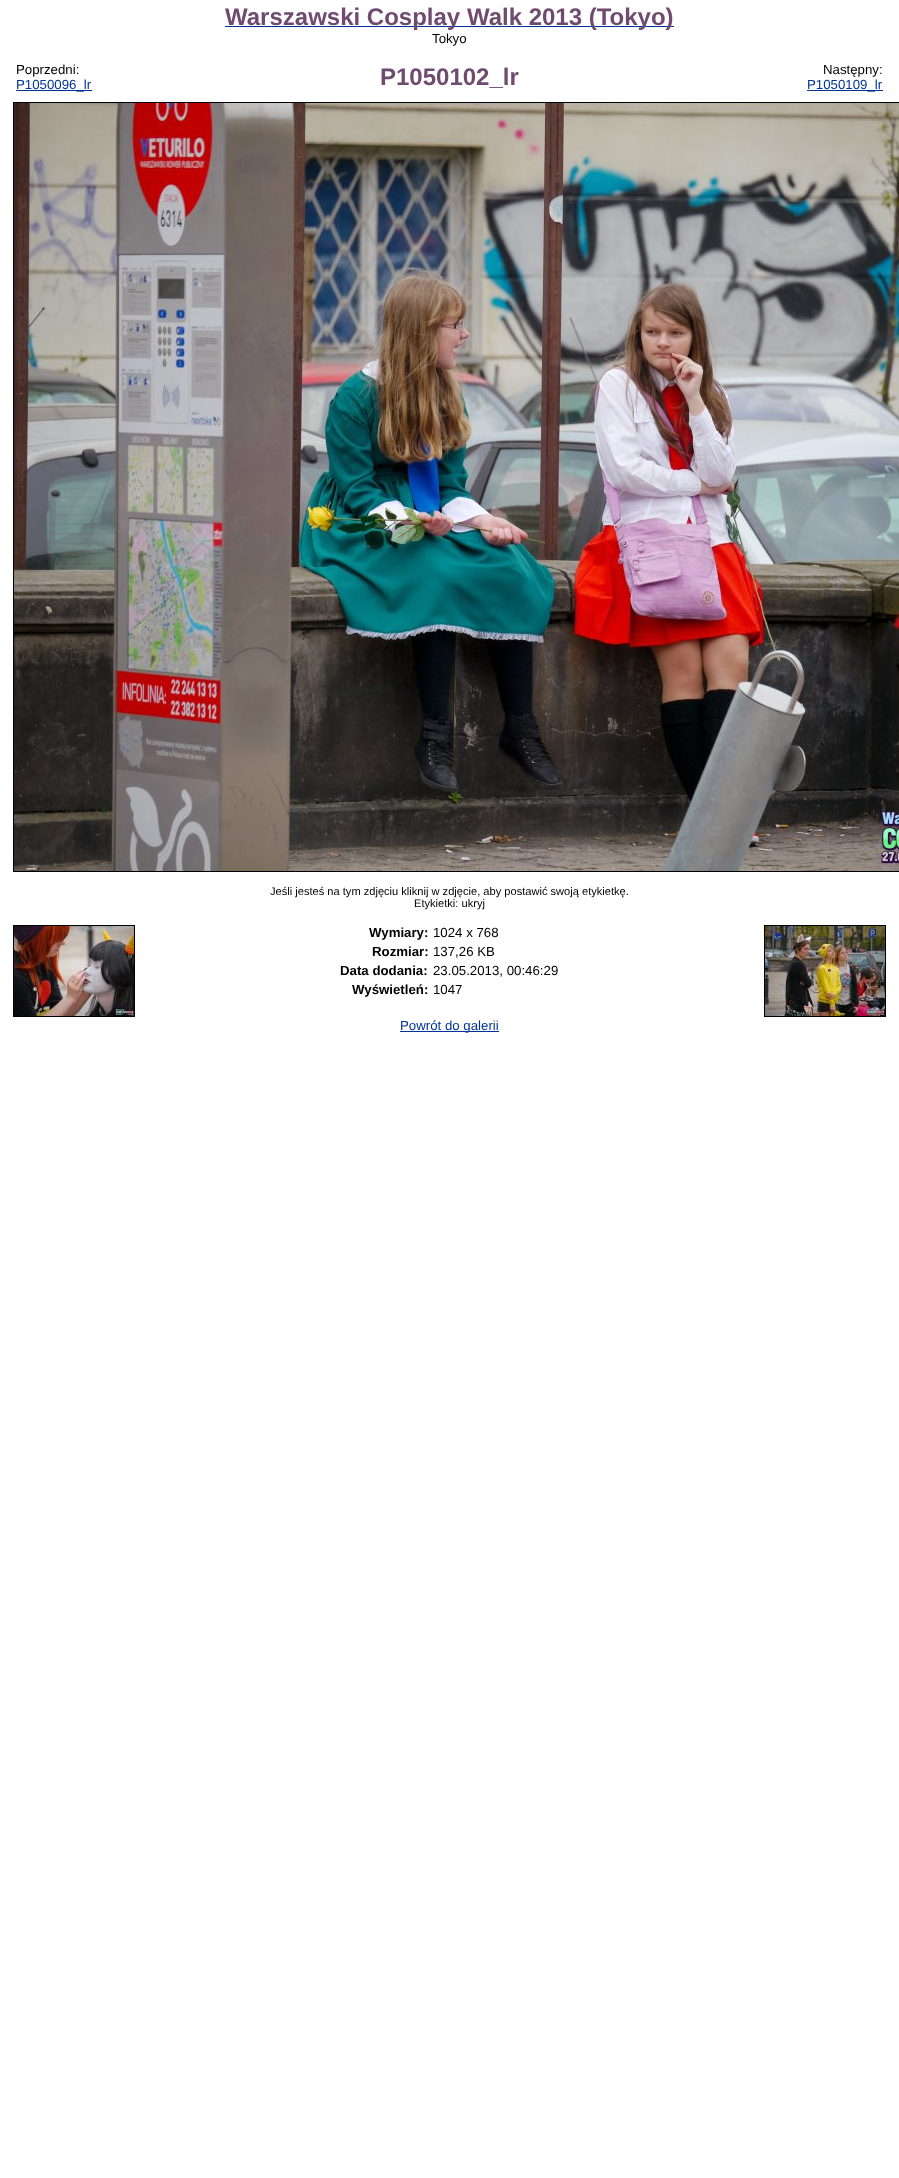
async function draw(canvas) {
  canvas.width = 899
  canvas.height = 2178
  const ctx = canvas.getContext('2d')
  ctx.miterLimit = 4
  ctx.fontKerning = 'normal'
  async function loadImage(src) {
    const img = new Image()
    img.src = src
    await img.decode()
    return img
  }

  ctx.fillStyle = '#fff'
  ctx.fillRect(0, 0, 899, 2178)
  ctx.fillStyle = '#039'
  ctx.fillRect(225, 26, 449, 1)
  ctx.font = 'bold 24px Liberation Sans'
  ctx.fillStyle = '#6f4b6f'
  ctx.fillText('Warszawski Cosplay Walk 2013 (Tokyo)', 225, 25)
  ctx.font = '13.25px Liberation Sans'
  ctx.fillStyle = '#000'
  ctx.fillText('Tokyo', 432, 43)
  ctx.fillText('Poprzedni:', 16, 74)
  ctx.fillStyle = '#039'
  ctx.fillRect(16, 90, 76, 1)
  ctx.fillText('P1050096_lr', 16, 89)
  ctx.font = 'bold 24px Liberation Sans'
  ctx.fillStyle = '#6f4b6f'
  ctx.fillText('P1050102_lr', 380, 85)
  ctx.font = '13.25px Liberation Sans'
  ctx.fillStyle = '#000'
  ctx.fillText('Następny:', 823, 74)
  ctx.fillStyle = '#039'
  ctx.fillRect(807, 90, 76, 1)
  ctx.fillText('P1050109_lr', 807, 89)
  ctx.strokeStyle = '#000'
  ctx.strokeRect(13.5, 102.5, 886, 769)
  ctx.drawImage(await loadImage('image0.png'), 14, 103, 885, 768)
  ctx.font = '11.1px Liberation Sans'
  ctx.fillStyle = '#000'
  ctx.fillText('Jeśli jesteś na tym zdjęciu kliknij w zdjęcie, aby postawić swoją etykietkę.', 270, 895)
  ctx.fillText('Etykietki: ukryj', 414, 907)
  ctx.strokeRect(13.5, 925.5, 121, 91)
  ctx.drawImage(await loadImage('image1.png'), 14, 926, 120, 90)
  ctx.font = 'bold 13.25px Liberation Sans'
  ctx.fillText('Wymiary:', 369, 937)
  ctx.font = '13.25px Liberation Sans'
  ctx.fillText('1024 x 768', 433, 937)
  ctx.font = 'bold 13.25px Liberation Sans'
  ctx.fillText('Rozmiar:', 372, 956)
  ctx.font = '13.25px Liberation Sans'
  ctx.fillText('137,26 KB', 433, 956)
  ctx.font = 'bold 13.25px Liberation Sans'
  ctx.fillText('Data dodania:', 340, 975)
  ctx.font = '13.25px Liberation Sans'
  ctx.fillText('23.05.2013, 00:46:29', 433, 975)
  ctx.font = 'bold 13.25px Liberation Sans'
  ctx.fillText('Wyświetleń:', 352, 994)
  ctx.font = '13.25px Liberation Sans'
  ctx.fillText('1047', 433, 994)
  ctx.strokeRect(764.5, 925.5, 121, 91)
  ctx.drawImage(await loadImage('image2.png'), 765, 926, 120, 90)
  ctx.fillStyle = '#039'
  ctx.fillRect(400, 1031, 99, 1)
  ctx.fillText('Powrót do galerii', 400, 1030)
}

draw(document.querySelector('canvas'))
